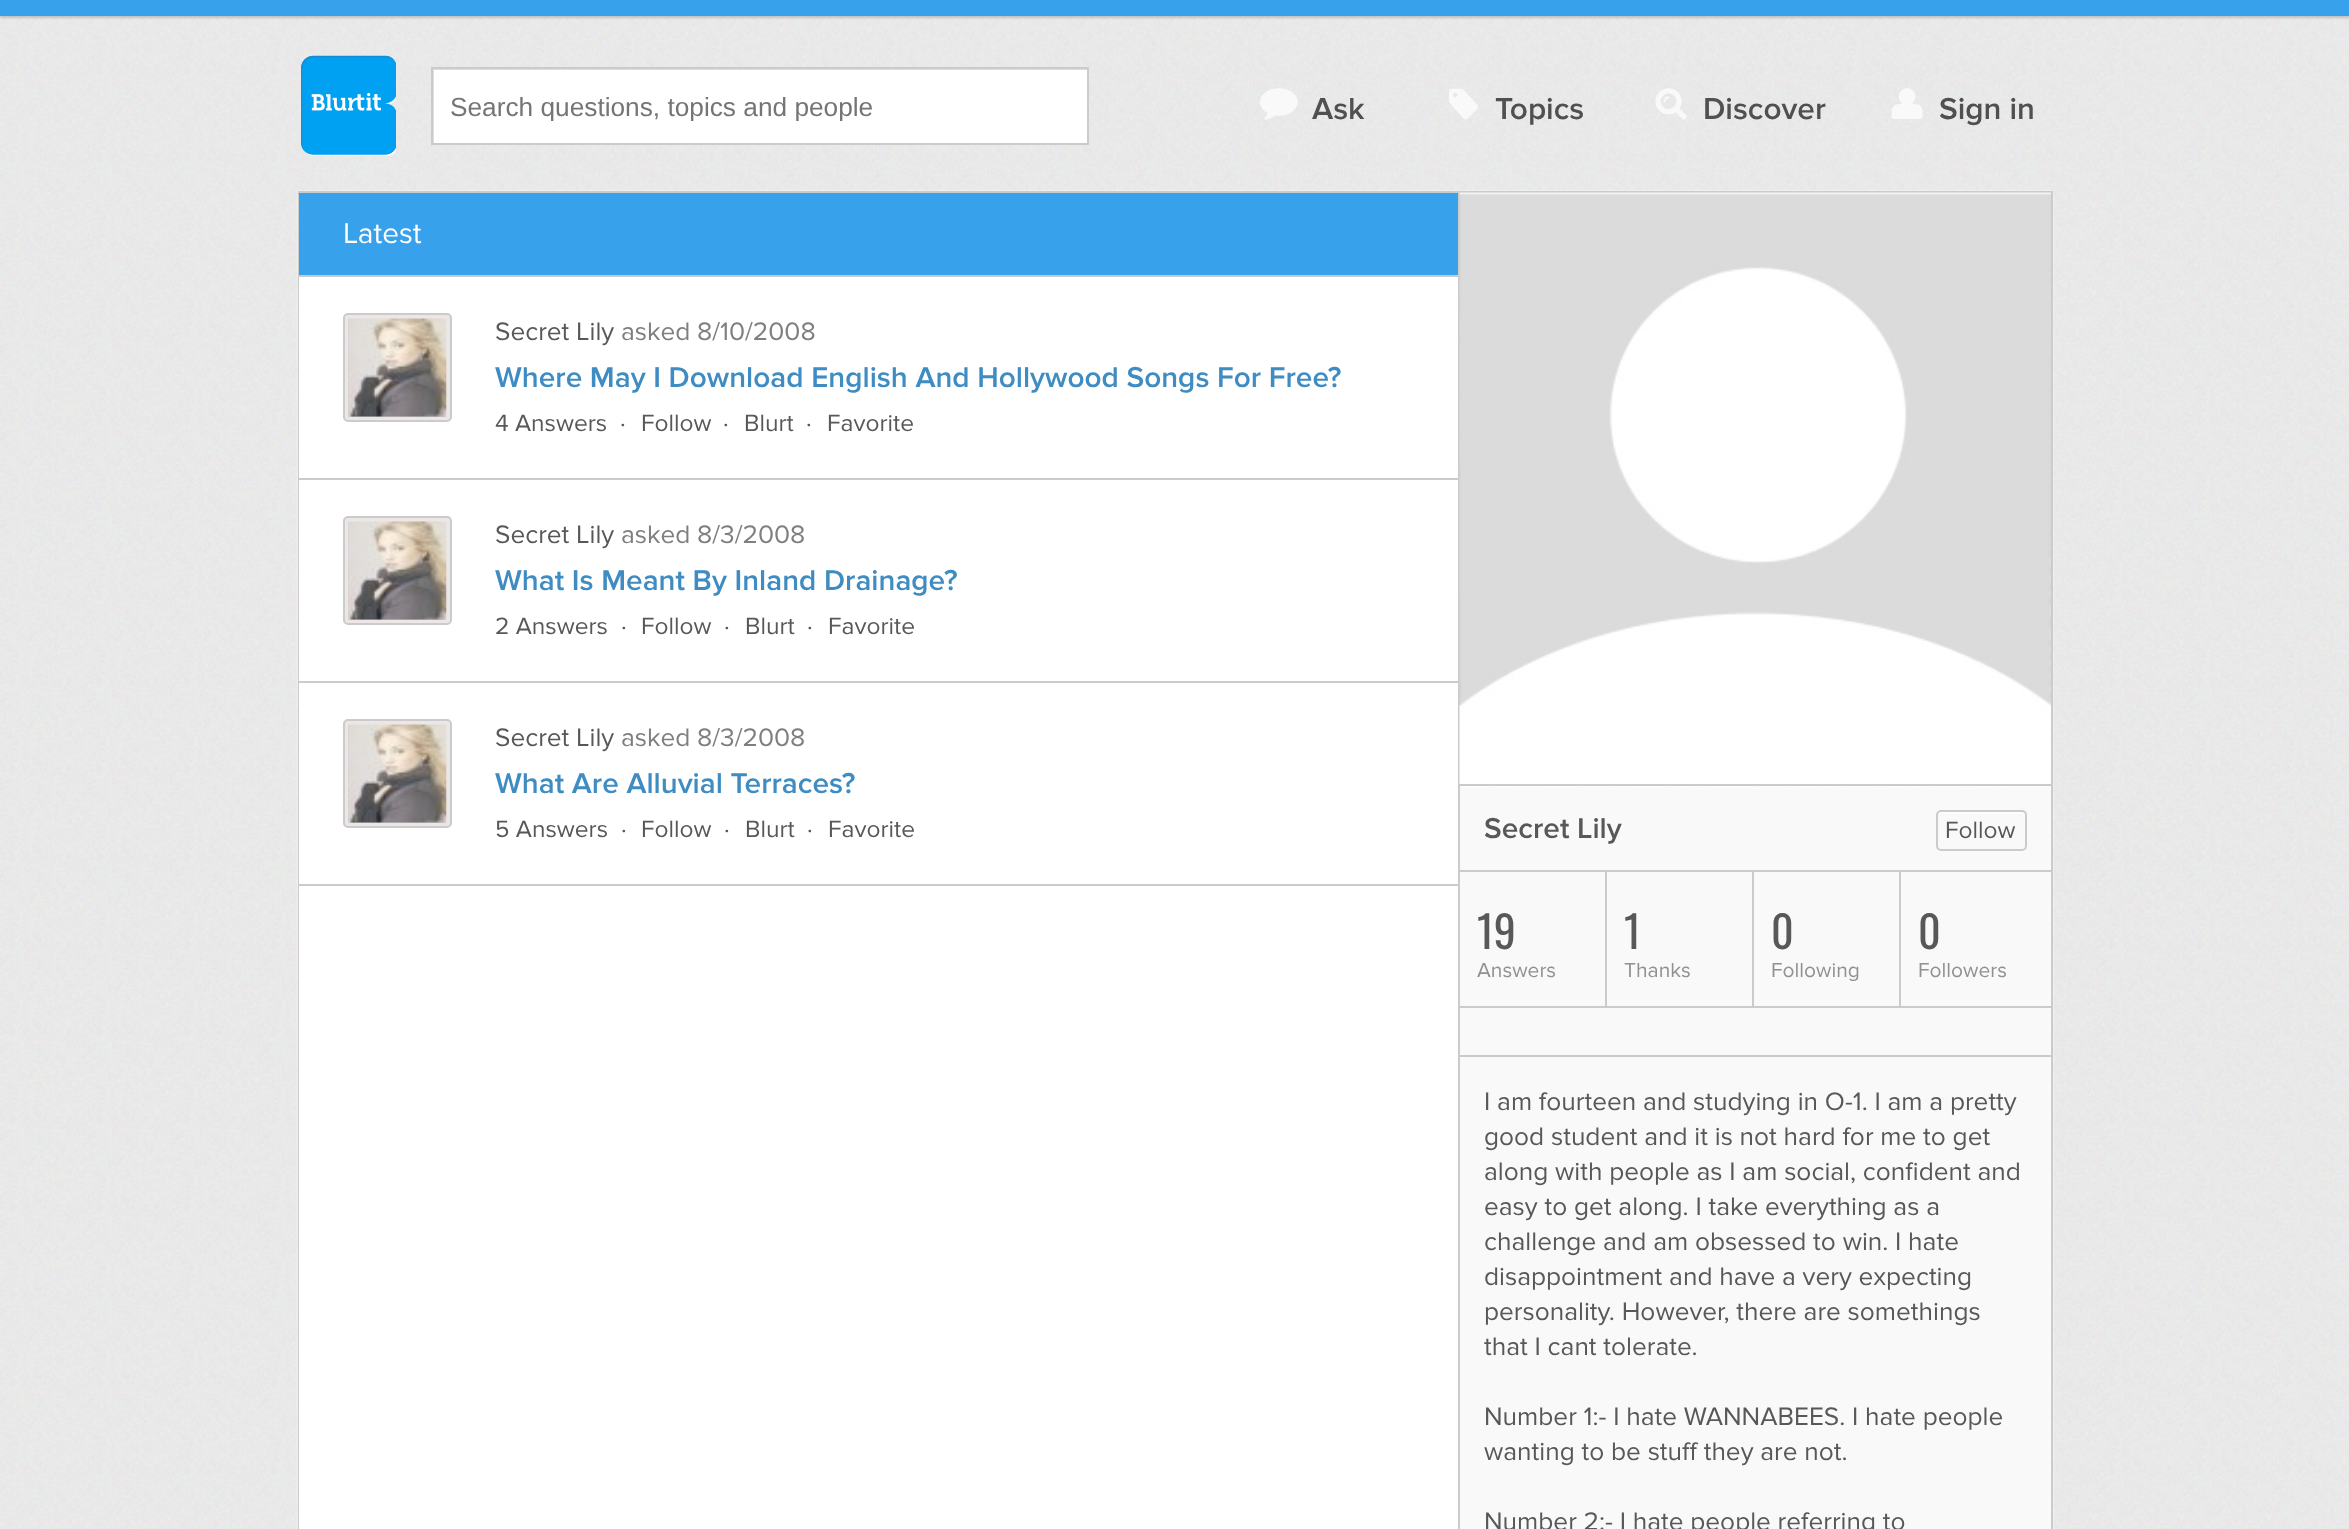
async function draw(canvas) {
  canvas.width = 2349
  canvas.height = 1529
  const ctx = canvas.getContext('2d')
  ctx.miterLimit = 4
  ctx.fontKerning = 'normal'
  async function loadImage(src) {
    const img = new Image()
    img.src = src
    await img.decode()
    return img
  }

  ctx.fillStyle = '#fff'
  ctx.fillRect(0, 0, 2349, 1529)
  ctx.drawImage(await loadImage('image0.png'), 0, 16, 2349, 1513)
  ctx.fillStyle = '#0000002b'
  ctx.filter = 'blur(1px)'
  ctx.beginPath()
  ctx.rect(0, 2, 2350, 16)
  ctx.fill()
  ctx.filter = 'none'
  ctx.fillStyle = '#38a1ec'
  ctx.fillRect(0, 0, 2349, 16)
  ctx.drawImage(await loadImage('image1.png'), 301, 55, 95, 101)
  ctx.fillStyle = '#fff'
  ctx.fillRect(434, 70, 653, 73)
  ctx.save()
  ctx.beginPath()
  ctx.rect(432, 68, 655, 76)
  ctx.clip()
  ctx.fillStyle = '#dedede'
  ctx.beginPath()
  ctx.moveTo(259, -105)
  ctx.lineTo(1260, -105)
  ctx.lineTo(1260, 317)
  ctx.lineTo(259, 317)
  ctx.closePath()
  ctx.moveTo(434, 70)
  ctx.lineTo(1088, 70)
  ctx.lineTo(1088, 145)
  ctx.lineTo(434, 145)
  ctx.closePath()
  ctx.fill('evenodd')
  ctx.restore()
  ctx.strokeStyle = '#cbcbcb'
  ctx.lineWidth = 2
  ctx.strokeRect(432, 68, 656, 76)
  ctx.save()
  ctx.beginPath()
  ctx.rect(450, 91, 619, 30)
  ctx.clip()
  ctx.font = '26.25px Liberation Sans'
  ctx.fillStyle = '#757575'
  ctx.fillText('Search questions, topics and people', 450, 116)
  ctx.restore()
  ctx.drawImage(await loadImage('image2.png'), 1260, 88, 38, 32)
  ctx.font = '600 31.5px Proxima Nova'
  ctx.fillStyle = '#505050'
  ctx.fillText('Ask', 1312, 119)
  ctx.drawImage(await loadImage('image3.png'), 1449, 88, 29, 32)
  ctx.fillText('Topics', 1495, 119)
  ctx.drawImage(await loadImage('image4.png'), 1655, 88, 32, 32)
  ctx.fillText('Discover', 1703, 119)
  ctx.drawImage(await loadImage('image5.png'), 1891, 88, 32, 31)
  ctx.fillText('Sign in', 1939, 119)
  ctx.fillStyle = '#ffffffcc'
  ctx.filter = 'blur(1px)'
  ctx.beginPath()
  ctx.rect(298, 191, 1755, 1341)
  ctx.fill()
  ctx.filter = 'none'
  ctx.fillStyle = '#f9f9f9'
  ctx.fillRect(1460, 788, 589, 741)
  ctx.strokeRect(299, 192, 1753, 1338)
  ctx.fillStyle = '#fff'
  ctx.fillRect(299, 277, 1159, 1252)
  ctx.fillStyle = '#cbcbcb'
  ctx.fillRect(1458, 193, 2, 1336)
  ctx.fillStyle = '#38a1ec'
  ctx.fillRect(299, 193, 1159, 82)
  ctx.fillStyle = '#cbcbcb'
  ctx.fillRect(299, 275, 1159, 2)
  ctx.font = '29.75px Proxima Nova'
  ctx.fillStyle = '#fff'
  ctx.fillText('Latest', 343, 243)
  ctx.fillStyle = '#cbcbcb'
  ctx.fillRect(299, 478, 1159, 2)
  ctx.fillStyle = '#ece6e7'
  ctx.beginPath()
  ctx.roundRect(344, 314, 107, 107, 4)
  ctx.fill()
  ctx.stroke()
  ctx.fillStyle = '#cbcbcb'
  ctx.fillRect(348, 319, 98, 98)
  ctx.drawImage(await loadImage('image6.png'), 348, 318, 99, 99)
  ctx.font = '26.25px Proxima Nova'
  ctx.fillStyle = '#585858'
  ctx.fillText('Secret Lily', 495, 340)
  ctx.fillStyle = '#7f7f7f'
  ctx.fillText('asked 8/10/2008', 621, 340)
  ctx.font = '600 29.75px Proxima Nova'
  ctx.fillStyle = '#3f8cc3'
  ctx.fillText('Where May I Download English And Hollywood Songs For Free?', 495, 387)
  ctx.font = '24.5px Proxima Nova'
  ctx.fillStyle = '#585858'
  ctx.fillText('4 Answers', 495, 431)
  ctx.fillText('·', 620, 431)
  ctx.fillText('Follow', 641, 431)
  ctx.fillText('·', 723, 431)
  ctx.fillText('Blurt', 744, 431)
  ctx.fillText('·', 806, 431)
  ctx.fillText('Favorite', 827, 431)
  ctx.fillStyle = '#cbcbcb'
  ctx.fillRect(299, 681, 1159, 2)
  ctx.fillStyle = '#ece6e7'
  ctx.beginPath()
  ctx.roundRect(344, 517, 107, 107, 4)
  ctx.fill()
  ctx.stroke()
  ctx.fillStyle = '#cbcbcb'
  ctx.fillRect(348, 522, 98, 98)
  ctx.drawImage(await loadImage('image7.png'), 348, 521, 99, 99)
  ctx.font = '26.25px Proxima Nova'
  ctx.fillStyle = '#585858'
  ctx.fillText('Secret Lily', 495, 543)
  ctx.fillStyle = '#7f7f7f'
  ctx.fillText('asked 8/3/2008', 621, 543)
  ctx.font = '600 29.75px Proxima Nova'
  ctx.fillStyle = '#3f8cc3'
  ctx.fillText('What Is Meant By Inland Drainage?', 495, 590)
  ctx.font = '24.5px Proxima Nova'
  ctx.fillStyle = '#585858'
  ctx.fillText('2 Answers', 495, 634)
  ctx.fillText('·', 621, 634)
  ctx.fillText('Follow', 641, 634)
  ctx.fillText('·', 724, 634)
  ctx.fillText('Blurt', 745, 634)
  ctx.fillText('·', 807, 634)
  ctx.fillText('Favorite', 828, 634)
  ctx.fillStyle = '#cbcbcb'
  ctx.fillRect(299, 884, 1159, 2)
  ctx.fillStyle = '#ece6e7'
  ctx.beginPath()
  ctx.roundRect(344, 720, 107, 107, 4)
  ctx.fill()
  ctx.stroke()
  ctx.fillStyle = '#cbcbcb'
  ctx.fillRect(348, 725, 98, 98)
  ctx.drawImage(await loadImage('image7.png'), 348, 724, 99, 99)
  ctx.font = '26.25px Proxima Nova'
  ctx.fillStyle = '#585858'
  ctx.fillText('Secret Lily', 495, 746)
  ctx.fillStyle = '#7f7f7f'
  ctx.fillText('asked 8/3/2008', 621, 746)
  ctx.font = '600 29.75px Proxima Nova'
  ctx.fillStyle = '#3f8cc3'
  ctx.fillText('What Are Alluvial Terraces?', 495, 793)
  ctx.font = '24.5px Proxima Nova'
  ctx.fillStyle = '#585858'
  ctx.fillText('5 Answers', 495, 837)
  ctx.fillText('·', 621, 837)
  ctx.fillText('Follow', 641, 837)
  ctx.fillText('·', 724, 837)
  ctx.fillText('Blurt', 745, 837)
  ctx.fillText('·', 807, 837)
  ctx.fillText('Favorite', 828, 837)
  ctx.drawImage(await loadImage('image8.png'), 1459, 192, 592, 592)
  ctx.fillStyle = '#cbcbcb'
  ctx.fillRect(1460, 784, 591, 2)
  ctx.fillRect(1460, 870, 591, 2)
  ctx.font = '600 29.75px Proxima Nova'
  ctx.fillStyle = '#585858'
  ctx.fillText('Secret Lily', 1484, 838)
  ctx.fillStyle = '#fefefe'
  ctx.beginPath()
  ctx.moveTo(1941, 814)
  ctx.lineTo(2021, 814)
  ctx.bezierCurveTo(2023, 814, 2025, 815, 2025, 817)
  ctx.bezierCurveTo(2025, 809, 2012, 812, 2008, 812)
  ctx.lineTo(1954, 812)
  ctx.bezierCurveTo(1950, 812, 1937, 809, 1937, 817)
  ctx.bezierCurveTo(1937, 815, 1939, 814, 1941, 814)
  ctx.closePath()
  ctx.fill()
  ctx.beginPath()
  ctx.roundRect(1937, 811, 89, 39, 4)
  ctx.stroke()
  ctx.font = '24.5px Proxima Nova'
  ctx.fillStyle = '#585858'
  ctx.fillText('Follow', 1945, 838)
  ctx.fillStyle = '#cbcbcb'
  ctx.fillRect(1460, 1006, 591, 2)
  ctx.fillRect(1605, 872, 2, 134)
  ctx.font = '44px Oswald'
  ctx.fillStyle = '#585858'
  ctx.fillText('19', 1477, 949)
  ctx.font = '21px Proxima Nova'
  ctx.fillStyle = '#919191'
  ctx.fillText('Answers', 1477, 977)
  ctx.fillStyle = '#cbcbcb'
  ctx.fillRect(1752, 872, 2, 134)
  ctx.font = '44px Oswald'
  ctx.fillStyle = '#585858'
  ctx.fillText('1', 1624, 949)
  ctx.font = '21px Proxima Nova'
  ctx.fillStyle = '#919191'
  ctx.fillText('Thanks', 1624, 977)
  ctx.fillStyle = '#cbcbcb'
  ctx.fillRect(1899, 872, 2, 134)
  ctx.font = '44px Oswald'
  ctx.fillStyle = '#585858'
  ctx.fillText('0', 1771, 949)
  ctx.font = '21px Proxima Nova'
  ctx.fillStyle = '#919191'
  ctx.fillText('Following', 1771, 977)
  ctx.font = '44px Oswald'
  ctx.fillStyle = '#585858'
  ctx.fillText('0', 1918, 949)
  ctx.font = '21px Proxima Nova'
  ctx.fillStyle = '#919191'
  ctx.fillText('Followers', 1918, 977)
  ctx.fillStyle = '#cbcbcb'
  ctx.fillRect(1460, 1055, 591, 2)
  ctx.font = '26.25px Proxima Nova'
  ctx.fillStyle = '#585858'
  ctx.fillText('I am fourteen and studying in O-1. I am a pretty', 1484, 1110)
  ctx.fillText('good student and it is not hard for me to get', 1484, 1145)
  ctx.fillText('along with people as I am social, confident and', 1484, 1180)
  ctx.fillText('easy to get along. I take everything as a', 1484, 1215)
  ctx.fillText('challenge and am obsessed to win. I hate', 1484, 1250)
  ctx.fillText('disappointment and have a very expecting', 1484, 1285)
  ctx.fillText('personality. However, there are somethings', 1484, 1320)
  ctx.fillText('that I cant tolerate.', 1484, 1355)
  ctx.fillText('Number 1:- I hate WANNABEES. I hate people', 1484, 1425)
  ctx.fillText('wanting to be stuff they are not.', 1484, 1460)
  ctx.fillText('Number 2:- I hate people referring to', 1484, 1530)
}

draw(document.querySelector('canvas'))
